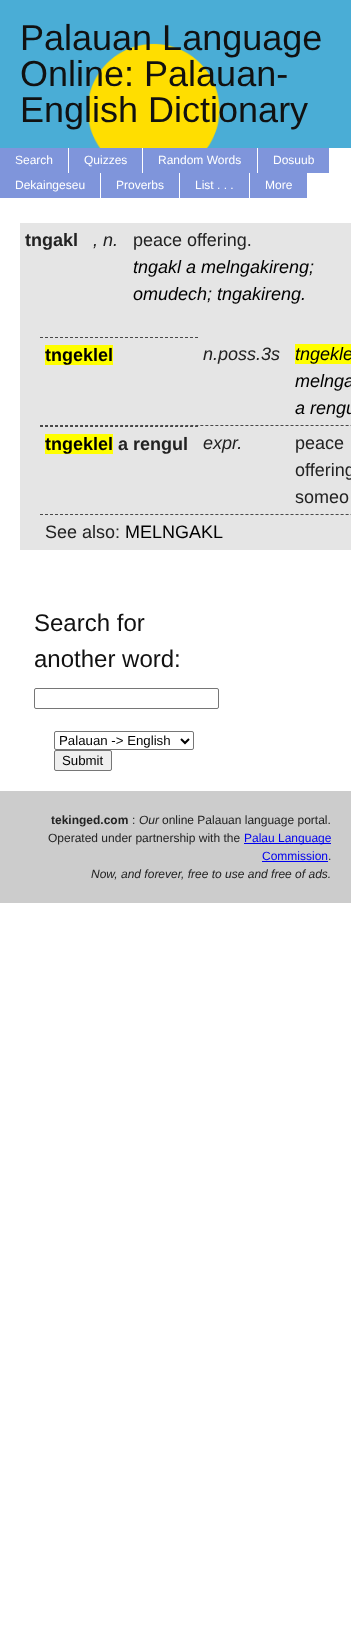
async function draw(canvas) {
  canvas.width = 351
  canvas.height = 1648
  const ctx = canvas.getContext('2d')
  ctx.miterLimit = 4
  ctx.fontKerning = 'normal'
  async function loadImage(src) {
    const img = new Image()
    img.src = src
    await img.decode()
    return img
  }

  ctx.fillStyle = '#fff'
  ctx.fillRect(0, 0, 351, 1648)
  ctx.drawImage(await loadImage('image0.png'), 0, 0, 351, 148)
  ctx.font = '36px Liberation Sans'
  ctx.fillStyle = '#111'
  ctx.fillText('Palauan Language', 20, 50)
  ctx.fillText('Online: Palauan-', 20, 86)
  ctx.fillText('English Dictionary', 20, 122)
  ctx.fillStyle = '#7f95db'
  ctx.fillRect(0, 148, 68, 25)
  ctx.font = '12px Liberation Sans'
  ctx.fillStyle = '#fff'
  ctx.fillText('Search', 15, 164)
  ctx.fillStyle = '#7f95db'
  ctx.fillRect(69, 148, 73, 25)
  ctx.fillStyle = '#fff'
  ctx.fillText('Quizzes', 84, 164)
  ctx.fillStyle = '#7f95db'
  ctx.fillRect(143, 148, 114, 25)
  ctx.fillStyle = '#fff'
  ctx.fillText('Random Words', 158, 164)
  ctx.fillStyle = '#7f95db'
  ctx.fillRect(258, 148, 71, 25)
  ctx.fillStyle = '#fff'
  ctx.fillText('Dosuub', 273, 164)
  ctx.fillStyle = '#7f95db'
  ctx.fillRect(0, 173, 100, 25)
  ctx.fillStyle = '#fff'
  ctx.fillText('Dekaingeseu', 15, 189)
  ctx.fillStyle = '#7f95db'
  ctx.fillRect(101, 173, 78, 25)
  ctx.fillStyle = '#fff'
  ctx.fillText('Proverbs', 116, 189)
  ctx.fillStyle = '#7f95db'
  ctx.fillRect(180, 173, 69, 25)
  ctx.fillStyle = '#fff'
  ctx.fillText('List . . .', 195, 189)
  ctx.fillStyle = '#7f95db'
  ctx.fillRect(250, 173, 57, 25)
  ctx.fillStyle = '#fff'
  ctx.fillText('More', 265, 189)
  ctx.fillStyle = '#e5e5e5'
  ctx.fillRect(20, 223, 331, 327)
  ctx.font = 'bold 18px Liberation Sans'
  ctx.fillStyle = '#222'
  ctx.fillText('tngakl', 25, 246)
  ctx.font = 'italic 18px Liberation Sans'
  ctx.fillText(', n.', 93, 246)
  ctx.font = '18px Liberation Sans'
  ctx.fillText('peace offering.', 133, 246)
  ctx.font = 'italic 18px Liberation Sans'
  ctx.fillStyle = '#000'
  ctx.fillText('tngakl a melngakireng;', 133, 273)
  ctx.fillText('omudech; tngakireng.', 133, 300)
  ctx.beginPath()
  ctx.moveTo(40, 425.5)
  ctx.lineTo(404, 425.5)
  ctx.strokeStyle = '#494949'
  ctx.setLineDash([3, 2.01])
  ctx.stroke()
  ctx.beginPath()
  ctx.moveTo(40, 337.5)
  ctx.lineTo(198, 337.5)
  ctx.setLineDash([3, 2])
  ctx.stroke()
  ctx.fillStyle = '#ff0'
  ctx.fillRect(45, 345, 68, 20)
  ctx.font = 'bold 18px Liberation Sans'
  ctx.fillStyle = '#000'
  ctx.fillText('tngeklel', 45, 361)
  ctx.font = 'italic 18px Liberation Sans'
  ctx.fillStyle = '#222'
  ctx.fillText('n.poss.3s', 203, 360)
  ctx.fillStyle = '#ff0'
  ctx.fillRect(295, 344, 56, 20)
  ctx.fillStyle = '#000'
  ctx.fillText('tngekle', 295, 360)
  ctx.fillText('melnga', 295, 387)
  ctx.fillText('a rengu', 295, 414)
  ctx.beginPath()
  ctx.moveTo(40, 514.5)
  ctx.lineTo(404, 514.5)
  ctx.setLineDash([3, 2.01])
  ctx.stroke()
  ctx.beginPath()
  ctx.moveTo(40, 426.5)
  ctx.lineTo(198, 426.5)
  ctx.setLineDash([3, 2])
  ctx.stroke()
  ctx.fillStyle = '#ff0'
  ctx.fillRect(45, 434, 68, 20)
  ctx.font = 'bold 18px Liberation Sans'
  ctx.fillStyle = '#000'
  ctx.fillText('tngeklel', 45, 450)
  ctx.fillStyle = '#222'
  ctx.fillText('a rengul', 118, 450)
  ctx.font = 'italic 18px Liberation Sans'
  ctx.fillText('expr.', 203, 449)
  ctx.font = '18px Liberation Sans'
  ctx.fillText('peace', 295, 449)
  ctx.fillText('offering', 295, 476)
  ctx.fillText('someo', 295, 503)
  ctx.fillText('See also:', 45, 538)
  ctx.fillStyle = '#000'
  ctx.fillText('MELNGAKL', 125, 538)
  ctx.font = '24px Liberation Sans'
  ctx.fillStyle = '#111'
  ctx.fillText('Search for', 34, 631)
  ctx.fillText('another word:', 34, 667)
  ctx.beginPath()
  ctx.roundRect(34.5, 688.5, 184, 20, 1.5)
  ctx.strokeStyle = '#767676'
  ctx.setLineDash([])
  ctx.stroke()
  ctx.beginPath()
  ctx.roundRect(54.5, 731.5, 139, 18, 1.5)
  ctx.stroke()
  ctx.beginPath()
  ctx.moveTo(181, 739)
  ctx.lineTo(185, 743)
  ctx.lineTo(189, 739)
  ctx.strokeStyle = '#000'
  ctx.lineWidth = 2
  ctx.stroke()
  ctx.font = '13.25px Liberation Sans'
  ctx.fillStyle = '#000'
  ctx.fillText('Palauan -> English', 59, 745)
  ctx.fillStyle = '#efefef'
  ctx.beginPath()
  ctx.roundRect(54.5, 750.5, 57, 20, 1.5)
  ctx.fill()
  ctx.strokeStyle = '#767676'
  ctx.lineWidth = 1
  ctx.stroke()
  ctx.fillStyle = '#000'
  ctx.fillText('Submit', 62, 765)
  ctx.fillStyle = '#ccc'
  ctx.fillRect(0, 791, 351, 112)
  ctx.font = 'bold 12px Liberation Sans'
  ctx.fillStyle = '#222'
  ctx.fillText('tekinged.com', 51, 824)
  ctx.font = '12px Liberation Sans'
  ctx.fillText(':', 132, 824)
  ctx.font = 'italic 12px Liberation Sans'
  ctx.fillText('Our', 139, 824)
  ctx.font = '12px Liberation Sans'
  ctx.fillText('online Palauan language portal.', 162, 824)
  ctx.fillText('Operated under partnership with the', 48, 842)
  ctx.fillStyle = '#00e'
  ctx.fillRect(244, 843, 87, 1)
  ctx.fillText('Palau Language', 244, 842)
  ctx.fillText('Commission', 262, 860)
  ctx.fillRect(262, 861, 66, 1)
  ctx.fillStyle = '#222'
  ctx.fillText('.', 328, 860)
  ctx.font = 'italic 12px Liberation Sans'
  ctx.fillText('Now, and forever, free to use and free of ads.', 91, 878)
}

draw(document.querySelector('canvas'))
